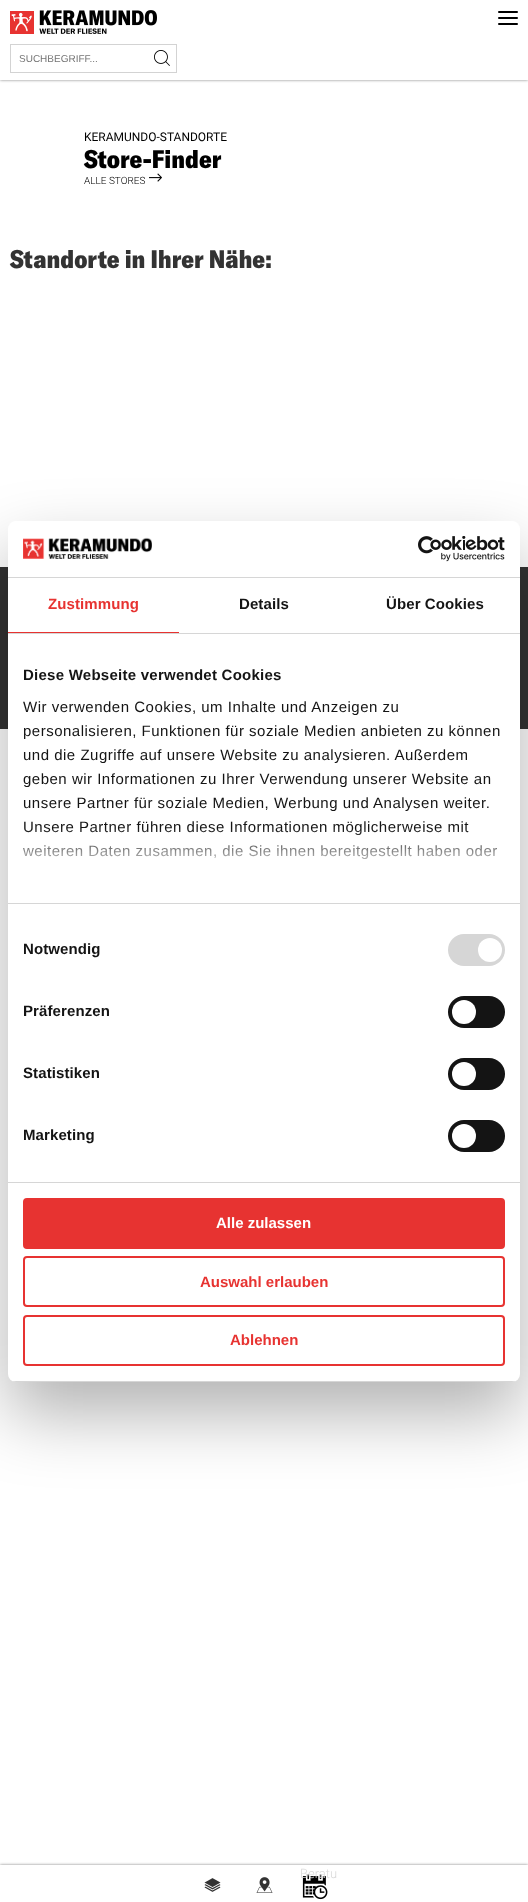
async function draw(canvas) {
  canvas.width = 528
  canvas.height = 1902
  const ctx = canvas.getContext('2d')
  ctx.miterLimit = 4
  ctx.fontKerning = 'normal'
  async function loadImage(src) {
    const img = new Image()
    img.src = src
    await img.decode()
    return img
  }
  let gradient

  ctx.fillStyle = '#fff'
  ctx.fillRect(0, 0, 528, 1902)
  ctx.save()
  ctx.beginPath()
  ctx.rect(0, 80, 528, 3)
  ctx.clip()
  ctx.fillStyle = '#00000080'
  ctx.filter = 'blur(1.5px)'
  ctx.beginPath()
  ctx.rect(0, 0, 528, 80)
  ctx.fill()
  ctx.filter = 'none'
  ctx.restore()
  ctx.drawImage(await loadImage('image0.png'), 10, 10, 147, 24)
  ctx.fillStyle = '#000'
  ctx.beginPath()
  ctx.roundRect(498, 11, 20, 2, 1)
  ctx.fill()
  ctx.beginPath()
  ctx.roundRect(498, 17, 20, 2, 1)
  ctx.fill()
  ctx.beginPath()
  ctx.roundRect(498, 23, 20, 2, 1)
  ctx.fill()
  ctx.strokeStyle = '#d3d3d3'
  ctx.strokeRect(10.5, 44.5, 166, 28)
  ctx.font = '10px Liberation Sans'
  ctx.fillStyle = '#757575'
  ctx.fillText('SUCHBEGRIFF...', 19, 62)
  ctx.drawImage(await loadImage('image1.png'), 154, 50, 16, 16)
  ctx.font = '12px Roboto'
  ctx.fillStyle = '#000'
  ctx.fillText('KERAMUNDO-STANDORTE', 84, 141)
  ctx.font = '900 25px GT America'
  ctx.fillText('Store-Finder', 84, 168)
  ctx.font = '300 10px Roboto'
  ctx.fillText('ALLE STORES', 84, 184)
  ctx.drawImage(await loadImage('image2.png'), 149, 173, 13, 9)
  ctx.font = '900 25px GT America'
  ctx.fillStyle = '#333'
  ctx.fillText('Standorte in Ihrer Nähe:', 10, 268)
  ctx.fillRect(0, 567, 528, 162)
  ctx.fillStyle = '#0000004d'
  ctx.filter = 'blur(34px)'
  ctx.beginPath()
  ctx.roundRect(8, 553, 512, 861, 8)
  ctx.fill()
  ctx.filter = 'none'
  ctx.fillStyle = '#fff'
  ctx.beginPath()
  ctx.roundRect(8, 521, 512, 861, 8)
  ctx.fill()
  ctx.fillStyle = '#d6d6d6'
  ctx.fillRect(8, 577, 512, 1)
  ctx.drawImage(await loadImage('image3.png'), 23, 537, 129, 22)
  ctx.drawImage(await loadImage('image4.png'), 418, 536, 87, 26)
  ctx.fillRect(8, 633, 512, 1)
  ctx.fillStyle = '#e73331'
  ctx.fillRect(8, 632, 171, 1)
  ctx.letterSpacing = '0.1px'
  ctx.font = 'bold 15px Liberation Sans'
  ctx.fillText('Zustimmung', 48, 609)
  ctx.fillStyle = '#141414'
  ctx.fillText('Details', 239, 609)
  ctx.fillText('Über Cookies', 386, 609)
  ctx.fillStyle = '#d6d6d6'
  ctx.fillRect(8, 903, 512, 1)
  ctx.letterSpacing = '0.25px'
  ctx.fillStyle = '#141414'
  ctx.fillText('Diese Webseite verwendet Cookies', 23, 680)
  ctx.letterSpacing = '0.5px'
  ctx.font = '15px Liberation Sans'
  ctx.fillText('Wir verwenden Cookies, um Inhalte und Anzeigen zu', 23, 712)
  ctx.fillText('personalisieren, Funktionen für soziale Medien anbieten zu können', 23, 736)
  ctx.fillText('und die Zugriffe auf unsere Website zu analysieren. Außerdem', 23, 760)
  ctx.fillText('geben wir Informationen zu Ihrer Verwendung unserer Website an', 23, 784)
  ctx.fillText('unsere Partner für soziale Medien, Werbung und Analysen weiter.', 23, 808)
  ctx.fillText('Unsere Partner führen diese Informationen möglicherweise mit', 23, 832)
  ctx.fillText('weiteren Daten zusammen, die Sie ihnen bereitgestellt haben oder', 23, 856)
  gradient = ctx.createLinearGradient(258, 903, 258, 828)
  gradient.addColorStop(0, '#fff')
  gradient.addColorStop(0.5, '#ffffffcc')
  gradient.addColorStop(1, '#ffffff00')
  ctx.fillStyle = gradient
  ctx.fillRect(23, 829, 474, 31)
  ctx.fillStyle = '#d6d6d6'
  ctx.fillRect(8, 1182, 512, 1)
  ctx.letterSpacing = '0.1px'
  ctx.font = 'bold 15px Liberation Sans'
  ctx.fillStyle = '#141414'
  ctx.fillText('Notwendig', 23, 954)
  ctx.fillStyle = '#d6d6d6'
  ctx.beginPath()
  ctx.roundRect(448, 934, 57, 32, 16)
  ctx.fill()
  ctx.fillStyle = '#fff'
  ctx.beginPath()
  ctx.arc(490, 950, 12, 0, 2 * Math.PI)
  ctx.fill()
  ctx.fillStyle = '#141414'
  ctx.fillText('Präferenzen', 23, 1016)
  ctx.beginPath()
  ctx.roundRect(448, 996, 57, 32, 16)
  ctx.fill()
  ctx.fillStyle = '#fff'
  ctx.beginPath()
  ctx.arc(464, 1012, 12, 0, 2 * Math.PI)
  ctx.fill()
  ctx.fillStyle = '#141414'
  ctx.fillText('Statistiken', 23, 1078)
  ctx.beginPath()
  ctx.roundRect(448, 1058, 57, 32, 16)
  ctx.fill()
  ctx.fillStyle = '#fff'
  ctx.beginPath()
  ctx.arc(464, 1074, 12, 0, 2 * Math.PI)
  ctx.fill()
  ctx.fillStyle = '#141414'
  ctx.fillText('Marketing', 23, 1140)
  ctx.beginPath()
  ctx.roundRect(448, 1120, 57, 32, 16)
  ctx.fill()
  ctx.fillStyle = '#fff'
  ctx.beginPath()
  ctx.arc(464, 1136, 12, 0, 2 * Math.PI)
  ctx.fill()
  ctx.save()
  ctx.beginPath()
  ctx.roundRect(8, 521, 512, 861, 8)
  ctx.clip()
  ctx.fillStyle = '#d6d6d6'
  ctx.fillRect(8, 1381, 512, 1)
  ctx.restore()
  ctx.fillStyle = '#e73331'
  ctx.beginPath()
  ctx.roundRect(24, 1199, 480, 49, 3)
  ctx.fill()
  ctx.strokeStyle = '#e73331'
  ctx.lineWidth = 2
  ctx.stroke()
  ctx.letterSpacing = '0px'
  ctx.fillStyle = '#fff'
  ctx.fillText('Alle zulassen', 216, 1228)
  ctx.beginPath()
  ctx.roundRect(24, 1257, 480, 49, 3)
  ctx.stroke()
  ctx.fillStyle = '#e73331'
  ctx.fillText('Auswahl erlauben', 200, 1287)
  ctx.beginPath()
  ctx.roundRect(24, 1316, 480, 49, 3)
  ctx.stroke()
  ctx.fillText('Ablehnen', 230, 1345)
  ctx.save()
  ctx.beginPath()
  ctx.rect(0, 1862, 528, 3)
  ctx.clip()
  ctx.fillStyle = '#00000080'
  ctx.filter = 'blur(1.5px)'
  ctx.beginPath()
  ctx.rect(0, 1865, 528, 37)
  ctx.fill()
  ctx.filter = 'none'
  ctx.restore()
  ctx.drawImage(await loadImage('image5.png'), 302, 1874, 26, 26)
  ctx.font = '300 13px Roboto'
  ctx.fillStyle = '#d9d9d9'
  ctx.fillText('Beratu', 300, 1878)
  ctx.drawImage(await loadImage('image6.png'), 204, 1878, 17, 14)
  ctx.drawImage(await loadImage('image7.png'), 256, 1877, 17, 16)
}

draw(document.querySelector('canvas'))
